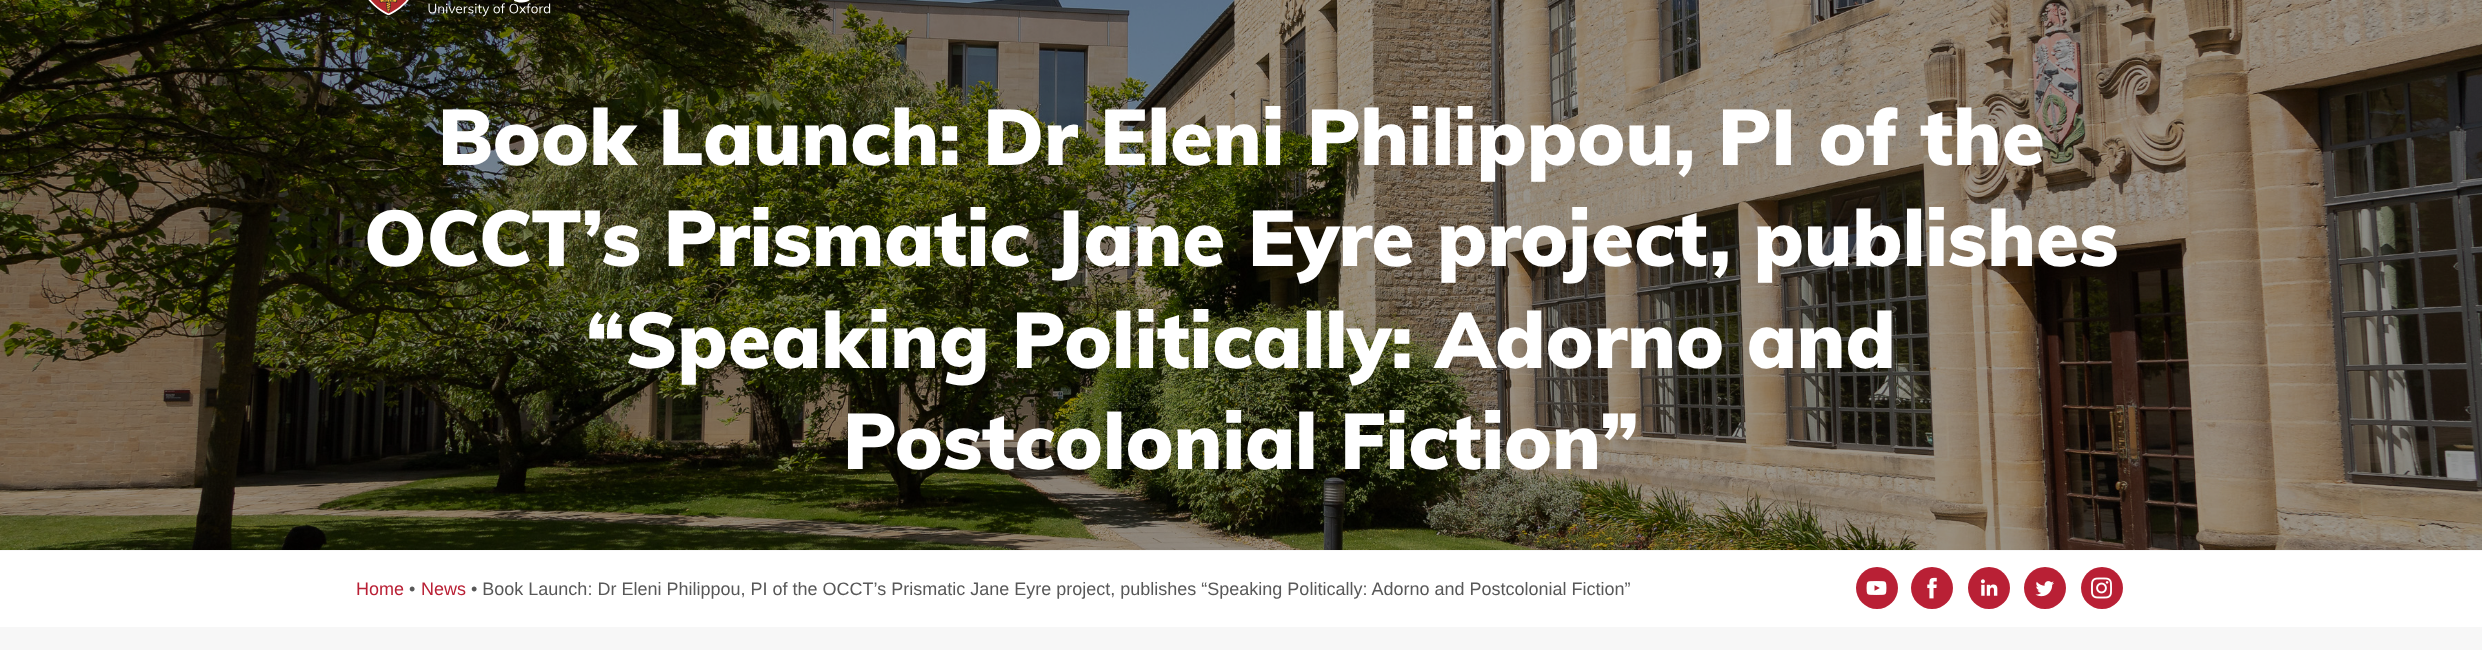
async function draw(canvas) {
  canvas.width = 2482
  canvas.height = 650
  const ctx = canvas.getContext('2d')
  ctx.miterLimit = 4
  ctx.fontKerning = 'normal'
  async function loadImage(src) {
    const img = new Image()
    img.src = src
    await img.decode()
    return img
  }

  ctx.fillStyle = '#f7f7f7'
  ctx.fillRect(0, 0, 2482, 650)
  ctx.drawImage(await loadImage('image0.png'), 0, 0, 2482, 550)
  ctx.drawImage(await loadImage('image1.png'), 368, 0, 183, 17)
  ctx.font = '900 78px Muli'
  ctx.fillStyle = '#fff'
  ctx.fillText('Book Launch: Dr Eleni Philippou, PI of the', 438, 165)
  ctx.fillText('OCCT’s Prismatic Jane Eyre project, publishes', 364, 266)
  ctx.fillText('“Speaking Politically: Adorno and', 586, 368)
  ctx.fillText('Postcolonial Fiction”', 843, 469)
  ctx.fillRect(0, 551, 2482, 76)
  ctx.font = '18px Liberation Sans'
  ctx.fillStyle = '#b92035'
  ctx.fillText('Home', 356, 595)
  ctx.fillStyle = '#585858'
  ctx.fillText('•', 409, 595)
  ctx.fillStyle = '#b92035'
  ctx.fillText('News', 421, 595)
  ctx.fillStyle = '#585858'
  ctx.fillText('• Book Launch: Dr Eleni Philippou, PI of the OCCT’s Prismatic Jane Eyre project, publishes “Speaking Politically: Adorno and Postcolonial Fiction”', 471, 595)
  ctx.fillStyle = '#b92035'
  ctx.beginPath()
  ctx.arc(1877, 588, 21, 0, 2 * Math.PI)
  ctx.fill()
  ctx.drawImage(await loadImage('image2.png'), 1866, 581, 21, 14)
  ctx.beginPath()
  ctx.arc(1932, 588, 21, 0, 2 * Math.PI)
  ctx.fill()
  ctx.drawImage(await loadImage('image3.png'), 1927, 577, 10, 22)
  ctx.beginPath()
  ctx.arc(1989, 588, 21, 0, 2 * Math.PI)
  ctx.fill()
  ctx.drawImage(await loadImage('image4.png'), 1980, 579, 18, 17)
  ctx.beginPath()
  ctx.arc(2045, 588, 21, 0, 2 * Math.PI)
  ctx.fill()
  ctx.drawImage(await loadImage('image5.png'), 2035, 581, 19, 16)
  ctx.beginPath()
  ctx.arc(2102, 588, 21, 0, 2 * Math.PI)
  ctx.fill()
  ctx.drawImage(await loadImage('image6.png'), 2091, 577, 21, 22)
}

draw(document.querySelector('canvas'))
